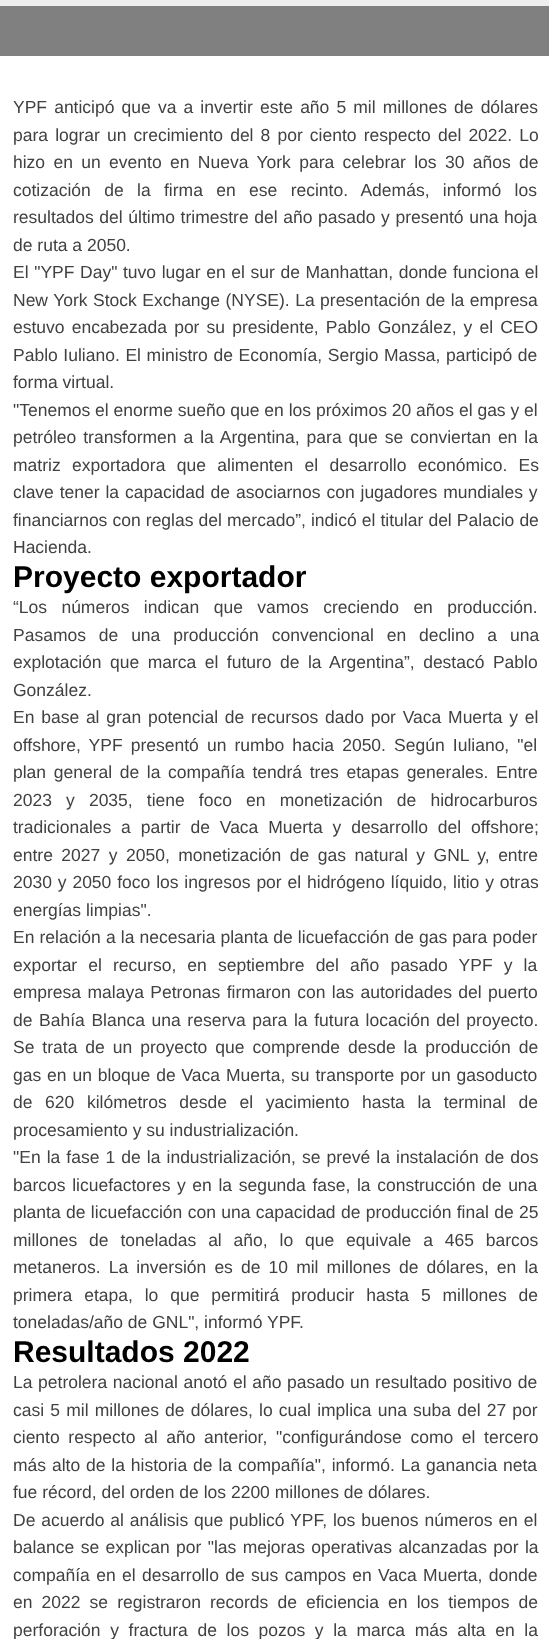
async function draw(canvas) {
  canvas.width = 549
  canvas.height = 1639
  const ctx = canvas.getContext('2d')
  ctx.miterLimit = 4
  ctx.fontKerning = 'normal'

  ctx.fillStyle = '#fff'
  ctx.fillRect(0, 0, 549, 1639)
  ctx.fillStyle = '#eee'
  ctx.fillRect(0, 0, 549, 6)
  ctx.fillStyle = '#808080'
  ctx.fillRect(0, 6, 549, 50)
  ctx.wordSpacing = '2.25px'
  ctx.font = '17.5px Liberation Sans'
  ctx.fillStyle = '#414141'
  ctx.fillText('YPF anticipó que va a invertir este año 5 mil millones de dólares', 13, 113)
  ctx.fillText('para lograr un crecimiento del 8 por ciento respecto del 2022. Lo', 13, 141)
  ctx.wordSpacing = '3.5px'
  ctx.fillText('hizo en un evento en Nueva York para celebrar los 30 años de', 13, 168)
  ctx.wordSpacing = '8.5px'
  ctx.fillText('cotización de la firma en ese recinto. Además, informó los', 13, 196)
  ctx.wordSpacing = '0.75px'
  ctx.fillText('resultados del último trimestre del año pasado y presentó una hoja', 13, 223)
  ctx.wordSpacing = '0px'
  ctx.fillText('de ruta a 2050.', 13, 251)
  ctx.wordSpacing = '0.75px'
  ctx.fillText('El "YPF Day" tuvo lugar en el sur de Manhattan, donde funciona el', 13, 278)
  ctx.wordSpacing = '0.6px'
  ctx.fillText('New York Stock Exchange (NYSE). La presentación de la empresa', 13, 306)
  ctx.wordSpacing = '2.25px'
  ctx.fillText('estuvo encabezada por su presidente, Pablo González, y el CEO', 13, 333)
  ctx.wordSpacing = '0.75px'
  ctx.fillText('Pablo Iuliano. El ministro de Economía, Sergio Massa, participó de', 13, 361)
  ctx.wordSpacing = '0px'
  ctx.fillText('forma virtual.', 13, 388)
  ctx.fillText('"Tenemos el enorme sueño que en los próximos 20 años el gas y el', 13, 416)
  ctx.wordSpacing = '2.1px'
  ctx.fillText('petróleo transformen a la Argentina, para que se conviertan en la', 13, 443)
  ctx.wordSpacing = '6.5px'
  ctx.fillText('matriz exportadora que alimenten el desarrollo económico. Es', 13, 471)
  ctx.wordSpacing = '1px'
  ctx.fillText('clave tener la capacidad de asociarnos con jugadores mundiales y', 13, 498)
  ctx.wordSpacing = '0.25px'
  ctx.fillText('financiarnos con reglas del mercado”, indicó el titular del Palacio de', 13, 526)
  ctx.wordSpacing = '0px'
  ctx.fillText('Hacienda.', 13, 553)
  ctx.font = 'bold 30px Liberation Sans'
  ctx.fillStyle = '#000'
  ctx.fillText('Proyecto exportador', 13, 587)
  ctx.wordSpacing = '9.5px'
  ctx.font = '17.5px Liberation Sans'
  ctx.fillStyle = '#414141'
  ctx.fillText('“Los números indican que vamos creciendo en producción.', 13, 613)
  ctx.wordSpacing = '8px'
  ctx.fillText('Pasamos de una producción convencional en declino a una', 13, 641)
  ctx.wordSpacing = '3.6px'
  ctx.fillText('explotación que marca el futuro de la Argentina”, destacó Pablo', 13, 668)
  ctx.wordSpacing = '0px'
  ctx.fillText('González.', 13, 696)
  ctx.wordSpacing = '1.9px'
  ctx.fillText('En base al gran potencial de recursos dado por Vaca Muerta y el', 13, 723)
  ctx.wordSpacing = '3.25px'
  ctx.fillText('offshore, YPF presentó un rumbo hacia 2050. Según Iuliano, "el', 13, 751)
  ctx.wordSpacing = '2.75px'
  ctx.fillText('plan general de la compañía tendrá tres etapas generales. Entre', 13, 778)
  ctx.wordSpacing = '9.25px'
  ctx.fillText('2023 y 2035, tiene foco en monetización de hidrocarburos', 13, 806)
  ctx.wordSpacing = '5px'
  ctx.fillText('tradicionales a partir de Vaca Muerta y desarrollo del offshore;', 13, 833)
  ctx.wordSpacing = '3.6px'
  ctx.fillText('entre 2027 y 2050, monetización de gas natural y GNL y, entre', 13, 861)
  ctx.wordSpacing = '1px'
  ctx.fillText('2030 y 2050 foco los ingresos por el hidrógeno líquido, litio y otras', 13, 888)
  ctx.wordSpacing = '0px'
  ctx.fillText('energías limpias".', 13, 916)
  ctx.wordSpacing = '0.25px'
  ctx.fillText('En relación a la necesaria planta de licuefacción de gas para poder', 13, 943)
  ctx.wordSpacing = '6.25px'
  ctx.fillText('exportar el recurso, en septiembre del año pasado YPF y la', 13, 971)
  ctx.wordSpacing = '1.5px'
  ctx.fillText('empresa malaya Petronas firmaron con las autoridades del puerto', 13, 998)
  ctx.wordSpacing = '1.75px'
  ctx.fillText('de Bahía Blanca una reserva para la futura locación del proyecto.', 13, 1026)
  ctx.wordSpacing = '3.1px'
  ctx.fillText('Se trata de un proyecto que comprende desde la producción de', 13, 1053)
  ctx.wordSpacing = '1px'
  ctx.fillText('gas en un bloque de Vaca Muerta, su transporte por un gasoducto', 13, 1081)
  ctx.wordSpacing = '7.75px'
  ctx.fillText('de 620 kilómetros desde el yacimiento hasta la terminal de', 13, 1108)
  ctx.wordSpacing = '0px'
  ctx.fillText('procesamiento y su industrialización.', 13, 1136)
  ctx.wordSpacing = '1.2px'
  ctx.fillText('"En la fase 1 de la industrialización, se prevé la instalación de dos', 13, 1163)
  ctx.wordSpacing = '1.75px'
  ctx.fillText('barcos licuefactores y en la segunda fase, la construcción de una', 13, 1191)
  ctx.wordSpacing = '0.5px'
  ctx.fillText('planta de licuefacción con una capacidad de producción final de 25', 13, 1218)
  ctx.wordSpacing = '7px'
  ctx.fillText('millones de toneladas al año, lo que equivale a 465 barcos', 13, 1246)
  ctx.wordSpacing = '3.25px'
  ctx.fillText('metaneros. La inversión es de 10 mil millones de dólares, en la', 13, 1273)
  ctx.wordSpacing = '7px'
  ctx.fillText('primera etapa, lo que permitirá producir hasta 5 millones de', 13, 1301)
  ctx.wordSpacing = '0px'
  ctx.fillText('toneladas/año de GNL", informó YPF.', 13, 1328)
  ctx.font = 'bold 30px Liberation Sans'
  ctx.fillStyle = '#000'
  ctx.fillText('Resultados 2022', 13, 1362)
  ctx.wordSpacing = '0.75px'
  ctx.font = '17.5px Liberation Sans'
  ctx.fillStyle = '#414141'
  ctx.fillText('La petrolera nacional anotó el año pasado un resultado positivo de', 13, 1388)
  ctx.wordSpacing = '1.3px'
  ctx.fillText('casi 5 mil millones de dólares, lo cual implica una suba del 27 por', 13, 1416)
  ctx.wordSpacing = '3.75px'
  ctx.fillText('ciento respecto al año anterior, "configurándose como el tercero', 13, 1443)
  ctx.wordSpacing = '1px'
  ctx.fillText('más alto de la historia de la compañía", informó. La ganancia neta', 13, 1471)
  ctx.wordSpacing = '0px'
  ctx.fillText('fue récord, del orden de los 2200 millones de dólares.', 13, 1498)
  ctx.wordSpacing = '1px'
  ctx.fillText('De acuerdo al análisis que publicó YPF, los buenos números en el', 13, 1526)
  ctx.wordSpacing = '1.5px'
  ctx.fillText('balance se explican por "las mejoras operativas alcanzadas por la', 13, 1553)
  ctx.fillText('compañía en el desarrollo de sus campos en Vaca Muerta, donde', 13, 1581)
  ctx.wordSpacing = '4.25px'
  ctx.fillText('en 2022 se registraron records de eficiencia en los tiempos de', 13, 1608)
  ctx.wordSpacing = '4.75px'
  ctx.fillText('perforación y fractura de los pozos y la marca más alta en la', 13, 1636)
}

draw(document.querySelector('canvas'))
